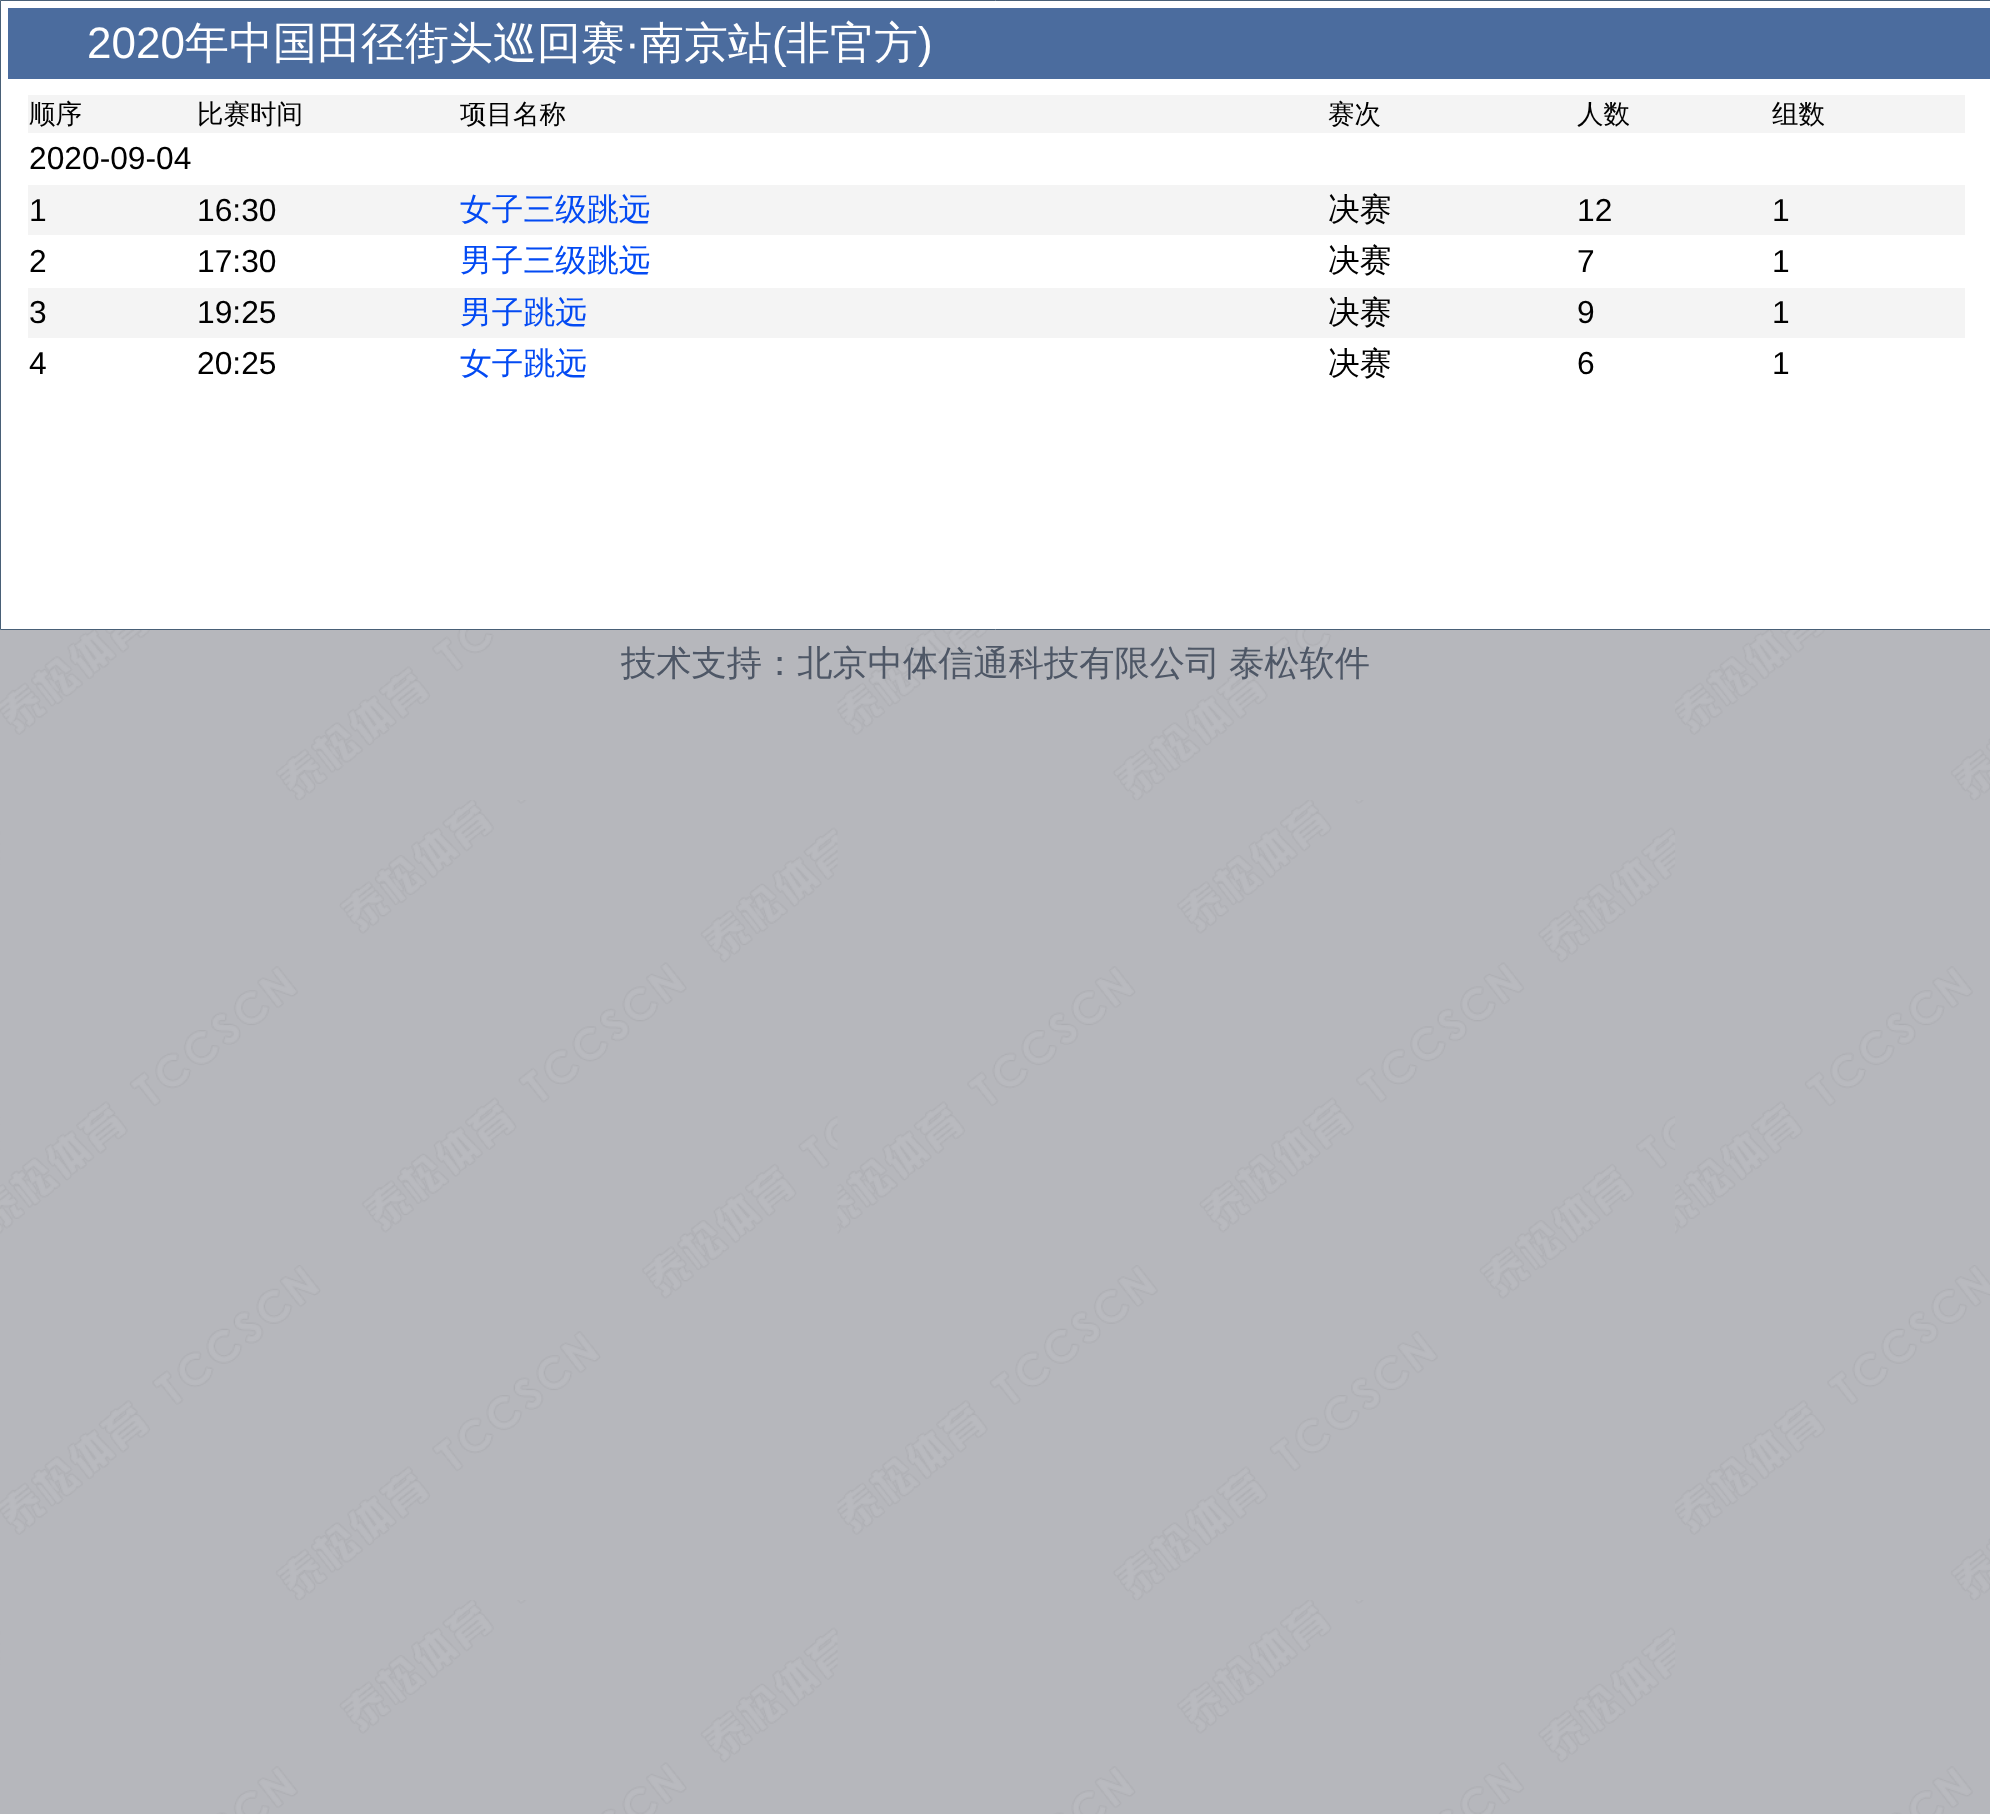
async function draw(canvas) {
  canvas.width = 1990
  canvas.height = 1814
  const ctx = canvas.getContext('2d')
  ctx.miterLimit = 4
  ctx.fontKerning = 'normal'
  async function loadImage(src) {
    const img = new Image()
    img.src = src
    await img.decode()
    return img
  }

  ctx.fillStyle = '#b6b7bc'
  ctx.fillRect(0, 0, 1990, 1814)
  ctx.drawImage(await loadImage('image0.png'), 0, 630, 1990, 1184)
  ctx.fillStyle = '#fff'
  ctx.beginPath()
  ctx.rect(0.5, 0.5, 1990, 629)
  ctx.fill()
  ctx.strokeStyle = '#496077'
  ctx.stroke()
  ctx.fillStyle = '#4b6c9e'
  ctx.fillRect(8, 8, 1982, 71)
  ctx.font = '44px Liberation Sans'
  ctx.fillStyle = '#fff'
  ctx.fillText('2020', 87, 58)
  ctx.font = '500 44px WenQuanYi Zen Hei'
  ctx.fillText('年中国田径街头巡回赛', 185, 58)
  ctx.font = '44px Liberation Sans'
  ctx.fillText('·', 625, 58)
  ctx.font = '500 44px WenQuanYi Zen Hei'
  ctx.fillText('南京站', 640, 58)
  ctx.font = '44px Liberation Sans'
  ctx.fillText('(', 772, 58)
  ctx.font = '500 44px WenQuanYi Zen Hei'
  ctx.fillText('非官方', 786, 58)
  ctx.font = '44px Liberation Sans'
  ctx.fillText(')', 918, 58)
  ctx.fillStyle = '#f4f4f4'
  ctx.fillRect(28, 95, 1937, 38)
  ctx.font = '500 26.5px WenQuanYi Zen Hei'
  ctx.fillStyle = '#000'
  ctx.fillText('顺序', 29, 123)
  ctx.fillText('比赛时间', 197, 123)
  ctx.fillText('项目名称', 460, 123)
  ctx.fillText('赛次', 1328, 123)
  ctx.fillText('人数', 1577, 123)
  ctx.fillText('组数', 1772, 123)
  ctx.font = '31.75px Liberation Sans'
  ctx.fillText('2020-09-04', 29, 169)
  ctx.fillStyle = '#f4f4f4'
  ctx.fillRect(28, 185, 1937, 50)
  ctx.fillStyle = '#000'
  ctx.fillText('1', 29, 221)
  ctx.fillText('16:30', 197, 221)
  ctx.font = '500 31.75px WenQuanYi Zen Hei'
  ctx.fillStyle = '#034af3'
  ctx.fillText('女子三级跳远', 460, 220)
  ctx.fillStyle = '#000'
  ctx.fillText('决赛', 1328, 220)
  ctx.font = '31.75px Liberation Sans'
  ctx.fillText('12', 1577, 221)
  ctx.fillText('1', 1772, 221)
  ctx.fillText('2', 29, 272)
  ctx.fillText('17:30', 197, 272)
  ctx.font = '500 31.75px WenQuanYi Zen Hei'
  ctx.fillStyle = '#034af3'
  ctx.fillText('男子三级跳远', 460, 271)
  ctx.fillStyle = '#000'
  ctx.fillText('决赛', 1328, 271)
  ctx.font = '31.75px Liberation Sans'
  ctx.fillText('7', 1577, 272)
  ctx.fillText('1', 1772, 272)
  ctx.fillStyle = '#f4f4f4'
  ctx.fillRect(28, 288, 1937, 50)
  ctx.fillStyle = '#000'
  ctx.fillText('3', 29, 323)
  ctx.fillText('19:25', 197, 323)
  ctx.font = '500 31.75px WenQuanYi Zen Hei'
  ctx.fillStyle = '#034af3'
  ctx.fillText('男子跳远', 460, 323)
  ctx.fillStyle = '#000'
  ctx.fillText('决赛', 1328, 323)
  ctx.font = '31.75px Liberation Sans'
  ctx.fillText('9', 1577, 323)
  ctx.fillText('1', 1772, 323)
  ctx.fillText('4', 29, 374)
  ctx.fillText('20:25', 197, 374)
  ctx.font = '500 31.75px WenQuanYi Zen Hei'
  ctx.fillStyle = '#034af3'
  ctx.fillText('女子跳远', 460, 374)
  ctx.fillStyle = '#000'
  ctx.fillText('决赛', 1328, 374)
  ctx.font = '31.75px Liberation Sans'
  ctx.fillText('6', 1577, 374)
  ctx.fillText('1', 1772, 374)
  ctx.font = '500 35.25px WenQuanYi Zen Hei'
  ctx.fillStyle = '#4e5766'
  ctx.fillText('技术支持：北京中体信通科技有限公司', 621, 675)
  ctx.fillText('泰松软件', 1229, 675)
}

draw(document.querySelector('canvas'))
